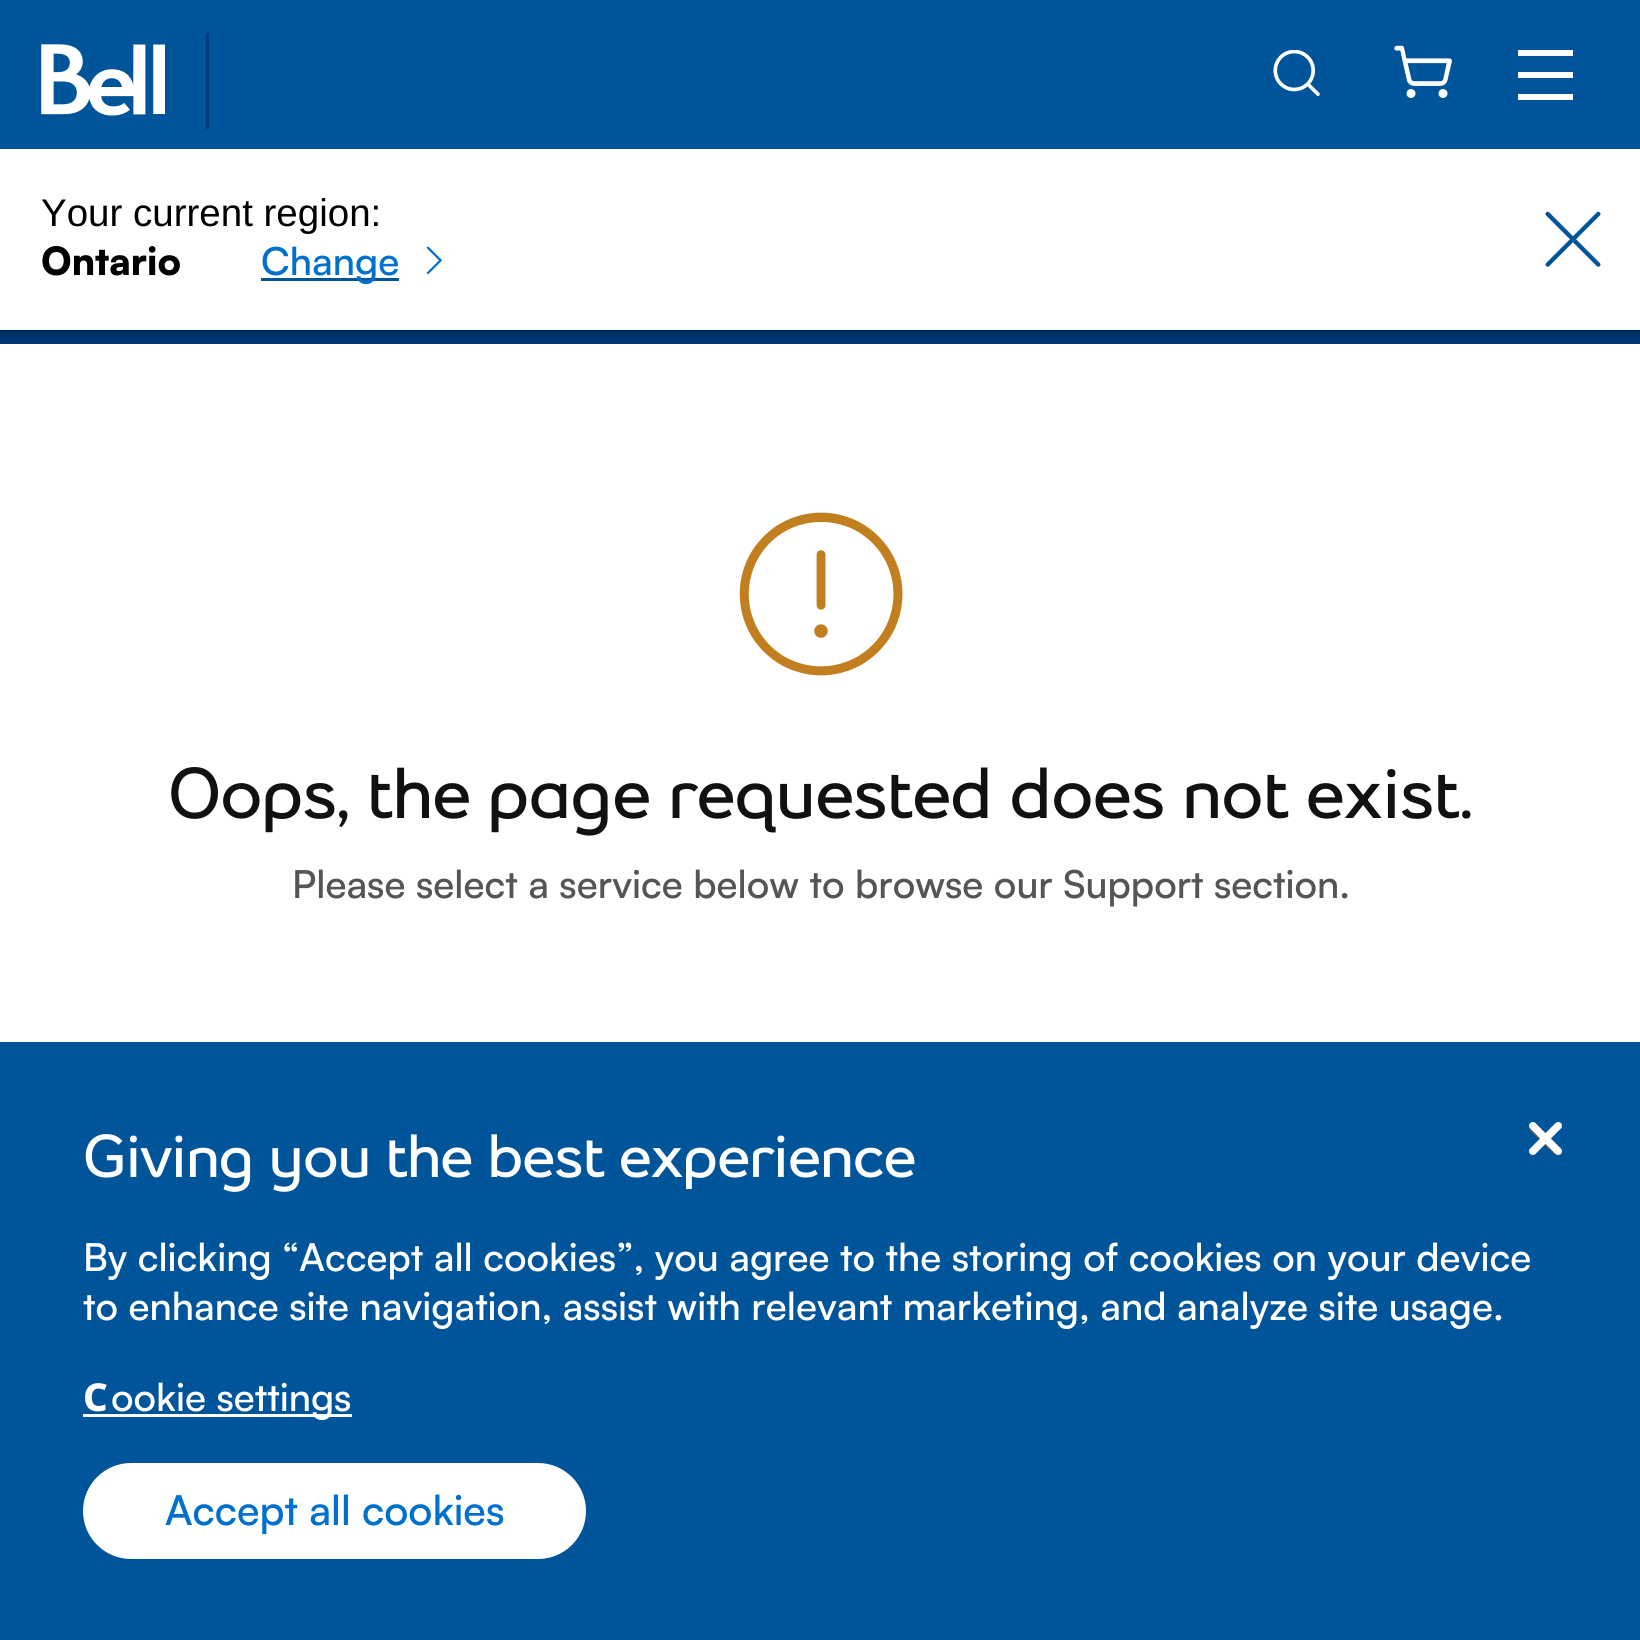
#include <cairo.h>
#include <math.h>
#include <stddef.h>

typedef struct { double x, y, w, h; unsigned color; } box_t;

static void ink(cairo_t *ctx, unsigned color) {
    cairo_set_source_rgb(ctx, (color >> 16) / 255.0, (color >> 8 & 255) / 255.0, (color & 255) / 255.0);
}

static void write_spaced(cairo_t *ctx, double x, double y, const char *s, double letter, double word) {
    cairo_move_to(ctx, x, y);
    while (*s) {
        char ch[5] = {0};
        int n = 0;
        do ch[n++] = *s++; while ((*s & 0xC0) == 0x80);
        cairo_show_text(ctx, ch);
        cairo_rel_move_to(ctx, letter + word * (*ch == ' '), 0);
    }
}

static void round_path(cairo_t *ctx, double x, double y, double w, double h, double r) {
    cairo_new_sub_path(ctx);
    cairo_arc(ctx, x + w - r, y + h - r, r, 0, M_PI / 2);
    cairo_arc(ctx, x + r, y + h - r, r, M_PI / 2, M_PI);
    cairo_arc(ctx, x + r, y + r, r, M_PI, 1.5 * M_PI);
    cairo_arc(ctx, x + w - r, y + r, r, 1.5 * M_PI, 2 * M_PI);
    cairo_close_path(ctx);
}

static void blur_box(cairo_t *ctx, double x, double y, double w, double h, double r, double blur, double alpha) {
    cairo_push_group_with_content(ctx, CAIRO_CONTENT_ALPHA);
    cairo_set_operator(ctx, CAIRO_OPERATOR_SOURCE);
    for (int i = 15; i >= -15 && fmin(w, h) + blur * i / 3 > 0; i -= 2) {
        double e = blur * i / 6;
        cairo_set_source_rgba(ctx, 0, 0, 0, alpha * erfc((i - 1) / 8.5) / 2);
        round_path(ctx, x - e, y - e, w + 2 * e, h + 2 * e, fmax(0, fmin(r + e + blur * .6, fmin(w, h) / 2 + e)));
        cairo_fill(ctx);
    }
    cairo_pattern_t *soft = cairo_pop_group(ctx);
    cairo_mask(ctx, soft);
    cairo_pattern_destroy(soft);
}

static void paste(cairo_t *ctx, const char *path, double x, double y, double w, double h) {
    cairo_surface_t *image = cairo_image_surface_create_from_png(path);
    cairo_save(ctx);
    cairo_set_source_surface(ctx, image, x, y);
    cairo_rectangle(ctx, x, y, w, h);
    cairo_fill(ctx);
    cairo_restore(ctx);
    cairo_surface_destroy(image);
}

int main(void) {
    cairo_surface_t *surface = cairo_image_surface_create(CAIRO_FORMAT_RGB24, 1640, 1640);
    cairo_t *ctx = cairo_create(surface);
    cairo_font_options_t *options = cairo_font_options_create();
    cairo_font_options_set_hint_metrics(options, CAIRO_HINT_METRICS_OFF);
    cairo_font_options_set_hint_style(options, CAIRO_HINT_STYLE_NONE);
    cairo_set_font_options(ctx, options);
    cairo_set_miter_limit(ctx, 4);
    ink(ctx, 0x003778);
    cairo_paint(ctx);
    ink(ctx, 0xFFFFFF);
    cairo_rectangle(ctx, 0, 344, 1640, 698);
    cairo_fill(ctx);
    ink(ctx, 0x000000);
    blur_box(ctx, 0, 149, 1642, 181, 0, 7, 0.5);
    ink(ctx, 0x00549A);
    cairo_rectangle(ctx, 0, 0, 1640, 149);
    cairo_fill(ctx);
    paste(ctx, "media/1.png", 41, 44, 124, 72);
    ink(ctx, 0x003778);
    cairo_rectangle(ctx, 206, 33, 3, 96);
    cairo_fill(ctx);
    paste(ctx, "media/2.png", 1273, 50, 47, 46);
    paste(ctx, "media/3.png", 1394, 45, 58, 53);
    {
        static const box_t items[] = {
            {1518, 50, 55, 6, 0xFFFFFF},
            {1518, 72, 55, 6, 0xFFFFFF},
            {1518, 94, 55, 6, 0xFFFFFF},
            {0, 149, 1640, 181, 0xFFFFFF},
        };
        for (size_t i = 0; i < sizeof items / sizeof *items; i++) {
            ink(ctx, items[i].color);
            cairo_rectangle(ctx, items[i].x, items[i].y, items[i].w, items[i].h);
            cairo_fill(ctx);
        }
    }
    cairo_select_font_face(ctx, "Liberation Sans", CAIRO_FONT_SLANT_NORMAL, CAIRO_FONT_WEIGHT_NORMAL);
    cairo_set_font_size(ctx, 38.5);
    ink(ctx, 0x000000);
    cairo_move_to(ctx, 41, 226);
    cairo_show_text(ctx, "Your current region:");
    cairo_select_font_face(ctx, "Satoshi Black", CAIRO_FONT_SLANT_NORMAL, CAIRO_FONT_WEIGHT_NORMAL);
    cairo_move_to(ctx, 41, 275);
    cairo_show_text(ctx, "Ontario");
    ink(ctx, 0x00549A);
    cairo_rectangle(ctx, 261, 278, 138, 3);
    cairo_fill(ctx);
    cairo_select_font_face(ctx, "Satoshi Medium", CAIRO_FONT_SLANT_NORMAL, CAIRO_FONT_WEIGHT_NORMAL);
    ink(ctx, 0x0070CE);
    cairo_move_to(ctx, 261, 275);
    cairo_show_text(ctx, "Change");
    paste(ctx, "media/4.png", 426, 246, 17, 29);
    paste(ctx, "media/5.png", 1545, 211, 56, 56);
    paste(ctx, "media/6.png", 739, 512, 164, 164);
    cairo_select_font_face(ctx, "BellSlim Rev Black", CAIRO_FONT_SLANT_NORMAL, CAIRO_FONT_WEIGHT_NORMAL);
    cairo_set_font_size(ctx, 71.5);
    ink(ctx, 0x111111);
    write_spaced(ctx, 168, 818, "Oops, the page requested does not exist.", -1.1, 0);
    cairo_select_font_face(ctx, "Satoshi Medium", CAIRO_FONT_SLANT_NORMAL, CAIRO_FONT_WEIGHT_NORMAL);
    cairo_set_font_size(ctx, 38.5);
    ink(ctx, 0x555555);
    cairo_move_to(ctx, 292, 898);
    cairo_show_text(ctx, "Please select a service below to browse our Support section.");
    ink(ctx, 0x00549A);
    cairo_rectangle(ctx, 0, 1042, 1640, 598);
    cairo_fill(ctx);
    cairo_select_font_face(ctx, "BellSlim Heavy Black", CAIRO_FONT_SLANT_NORMAL, CAIRO_FONT_WEIGHT_NORMAL);
    cairo_set_font_size(ctx, 60.5);
    ink(ctx, 0xFFFFFF);
    write_spaced(ctx, 83, 1177, "Giving you the best experience", -1.1, 0);
    cairo_select_font_face(ctx, "Satoshi Medium", CAIRO_FONT_SLANT_NORMAL, CAIRO_FONT_WEIGHT_NORMAL);
    cairo_set_font_size(ctx, 38.5);
    cairo_move_to(ctx, 83, 1271);
    cairo_show_text(ctx, "By clicking “Accept all cookies”, you agree to the storing of cookies on your device");
    cairo_move_to(ctx, 83, 1320);
    cairo_show_text(ctx, "to enhance site navigation, assist with relevant marketing, and analyze site usage.");
    cairo_select_font_face(ctx, "Noto Sans ExtraBold", CAIRO_FONT_SLANT_NORMAL, CAIRO_FONT_WEIGHT_NORMAL);
    cairo_move_to(ctx, 83, 1411);
    cairo_show_text(ctx, "C");
    cairo_rectangle(ctx, 83, 1414, 269, 3);
    cairo_fill(ctx);
    cairo_select_font_face(ctx, "Satoshi Medium", CAIRO_FONT_SLANT_NORMAL, CAIRO_FONT_WEIGHT_NORMAL);
    cairo_move_to(ctx, 111, 1411);
    cairo_show_text(ctx, "ookie settings");
    round_path(ctx, 83, 1463, 503, 96, 48);
    cairo_fill(ctx);
    cairo_set_font_size(ctx, 41.25);
    ink(ctx, 0x0070CE);
    cairo_move_to(ctx, 165, 1525);
    cairo_show_text(ctx, "Accept all cookies");
    paste(ctx, "media/7.png", 1529, 1125, 30, 30);
    paste(ctx, "media/8.png", 1529, 1122, 33, 33);
    cairo_surface_write_to_png(surface, "image.png");
    cairo_font_options_destroy(options);
    cairo_destroy(ctx);
    cairo_surface_destroy(surface);
    return 0;
}
